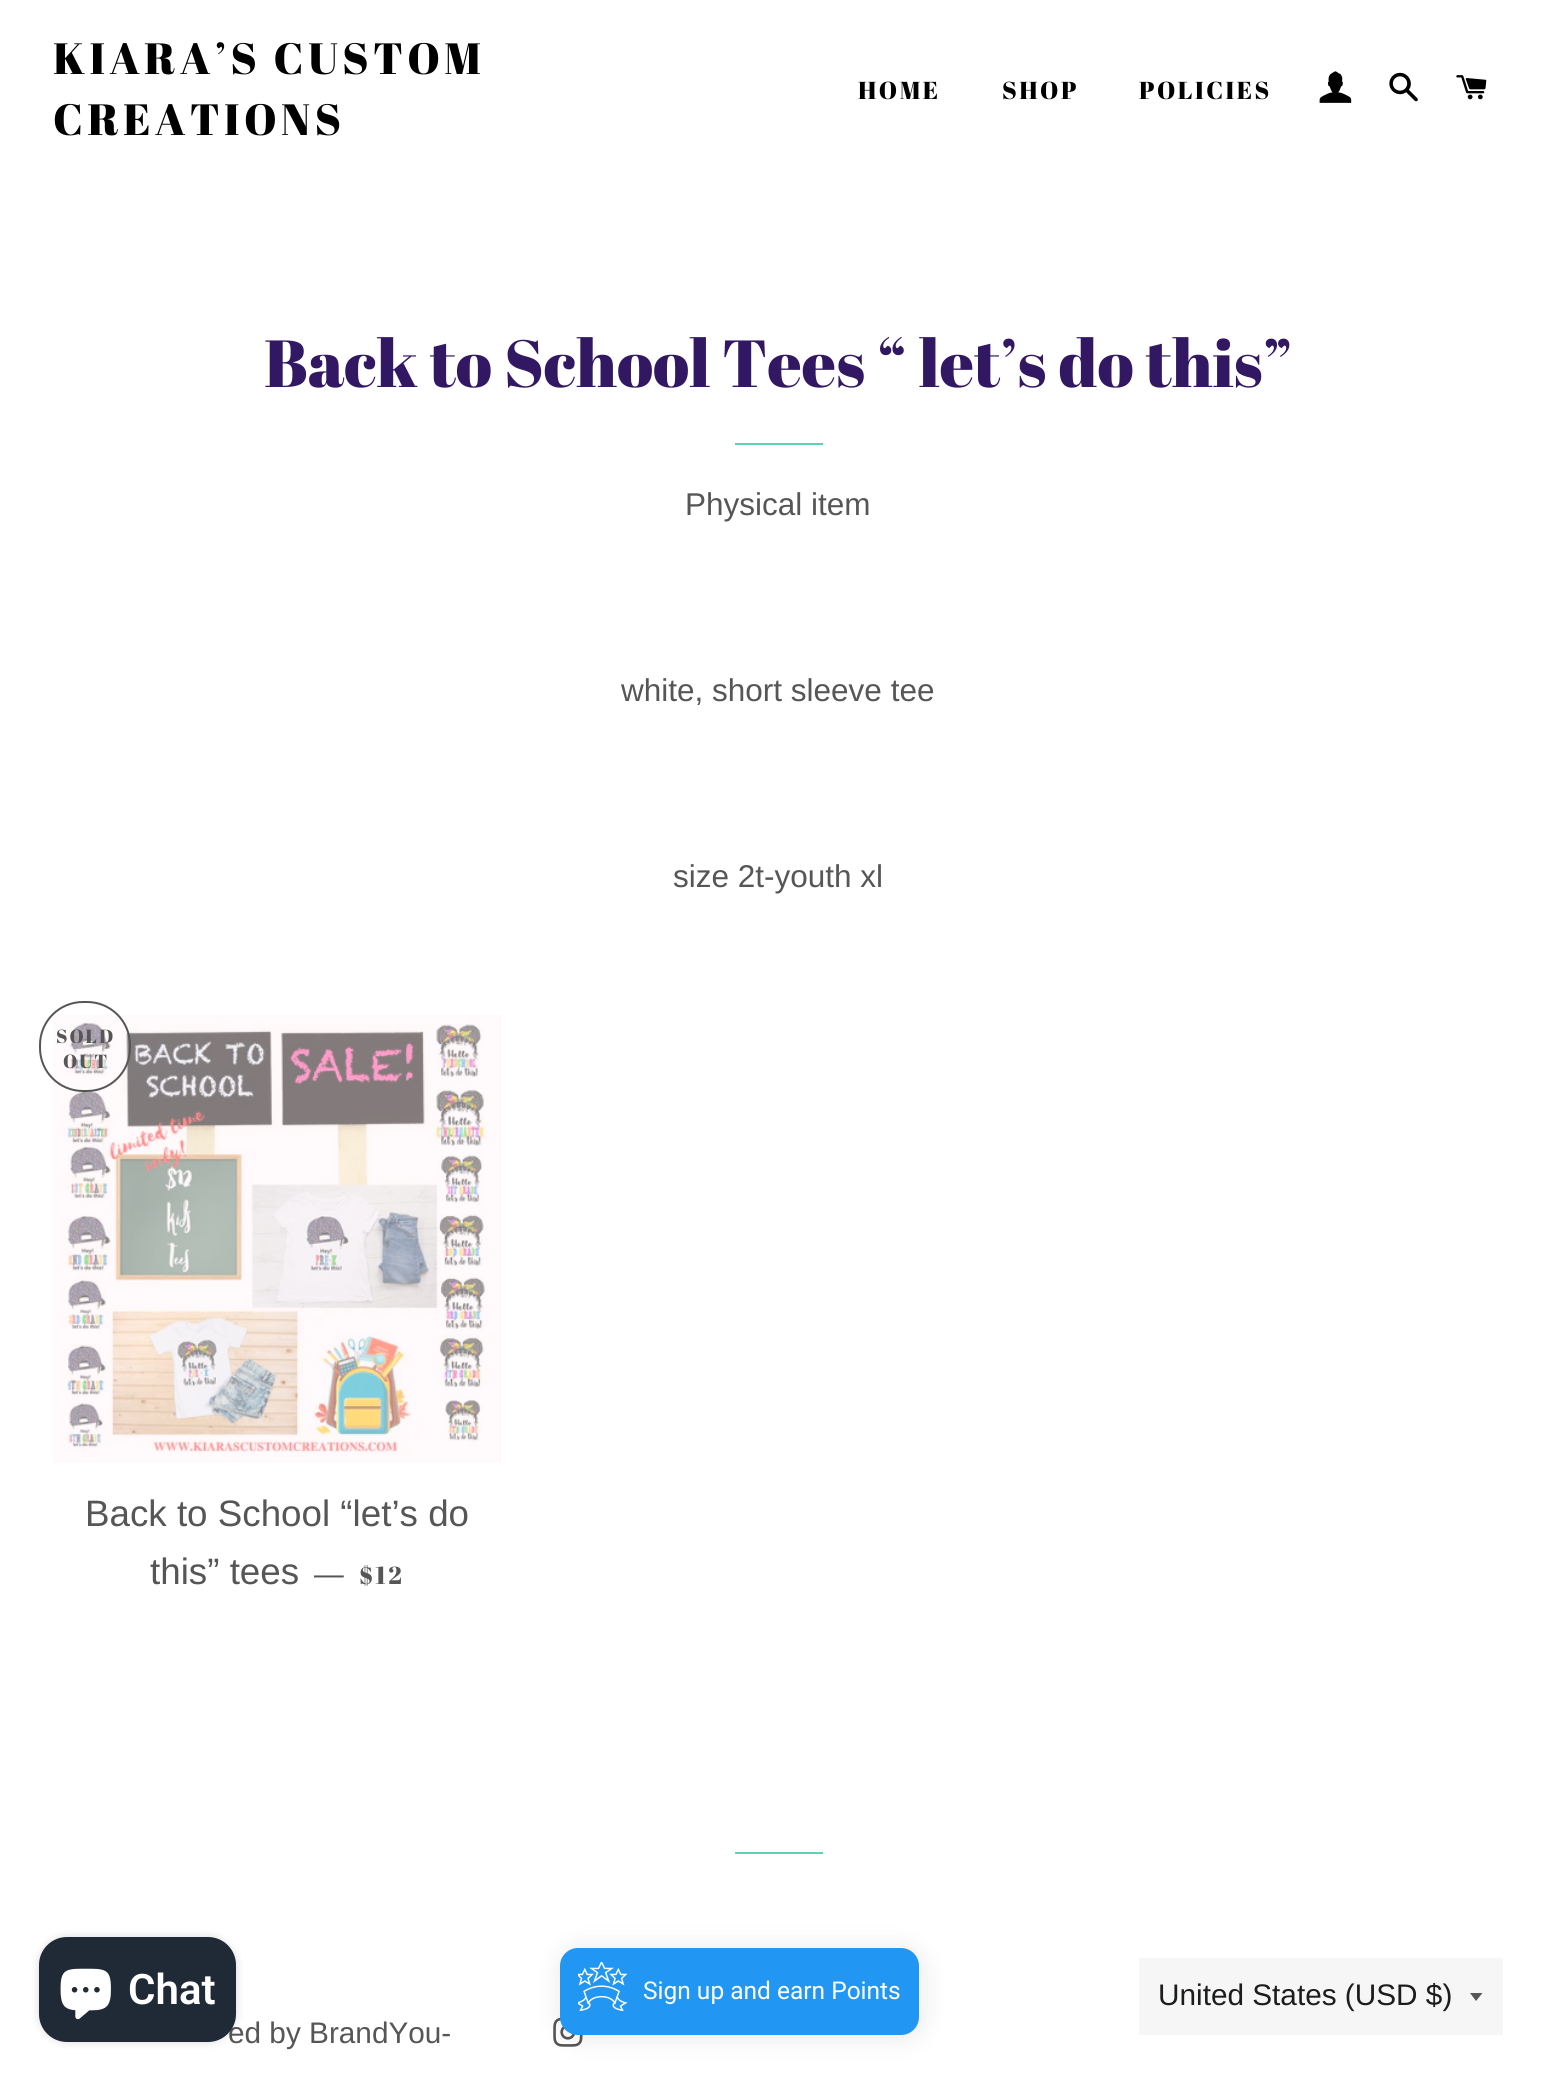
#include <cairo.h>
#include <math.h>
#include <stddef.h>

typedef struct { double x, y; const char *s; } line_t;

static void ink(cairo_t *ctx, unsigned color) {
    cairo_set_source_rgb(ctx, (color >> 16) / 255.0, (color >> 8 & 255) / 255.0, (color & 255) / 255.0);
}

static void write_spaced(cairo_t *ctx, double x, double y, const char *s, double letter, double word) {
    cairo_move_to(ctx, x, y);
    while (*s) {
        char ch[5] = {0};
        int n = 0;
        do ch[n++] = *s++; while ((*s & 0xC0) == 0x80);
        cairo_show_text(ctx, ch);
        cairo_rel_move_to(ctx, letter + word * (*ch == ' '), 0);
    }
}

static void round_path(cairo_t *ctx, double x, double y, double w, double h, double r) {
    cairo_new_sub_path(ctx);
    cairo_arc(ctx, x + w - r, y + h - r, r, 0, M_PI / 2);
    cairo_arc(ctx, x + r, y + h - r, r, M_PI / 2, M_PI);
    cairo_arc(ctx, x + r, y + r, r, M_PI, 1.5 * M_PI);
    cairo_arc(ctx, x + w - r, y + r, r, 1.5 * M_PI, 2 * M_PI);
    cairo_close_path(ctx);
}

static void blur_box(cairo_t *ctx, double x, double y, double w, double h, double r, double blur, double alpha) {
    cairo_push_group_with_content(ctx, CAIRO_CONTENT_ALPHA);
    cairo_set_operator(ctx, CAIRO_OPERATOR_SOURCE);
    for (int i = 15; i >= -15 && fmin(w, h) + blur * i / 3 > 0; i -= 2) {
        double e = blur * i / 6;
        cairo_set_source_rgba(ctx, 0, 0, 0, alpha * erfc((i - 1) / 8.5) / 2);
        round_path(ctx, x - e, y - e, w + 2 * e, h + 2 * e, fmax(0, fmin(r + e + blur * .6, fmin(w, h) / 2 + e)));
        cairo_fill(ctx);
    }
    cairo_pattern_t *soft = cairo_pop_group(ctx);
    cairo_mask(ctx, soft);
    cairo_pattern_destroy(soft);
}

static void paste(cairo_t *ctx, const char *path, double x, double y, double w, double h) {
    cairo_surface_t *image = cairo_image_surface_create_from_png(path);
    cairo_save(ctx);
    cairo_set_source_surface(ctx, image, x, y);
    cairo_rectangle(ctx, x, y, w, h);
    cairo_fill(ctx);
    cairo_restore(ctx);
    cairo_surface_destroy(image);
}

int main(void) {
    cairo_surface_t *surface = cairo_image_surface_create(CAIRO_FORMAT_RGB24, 1555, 2079);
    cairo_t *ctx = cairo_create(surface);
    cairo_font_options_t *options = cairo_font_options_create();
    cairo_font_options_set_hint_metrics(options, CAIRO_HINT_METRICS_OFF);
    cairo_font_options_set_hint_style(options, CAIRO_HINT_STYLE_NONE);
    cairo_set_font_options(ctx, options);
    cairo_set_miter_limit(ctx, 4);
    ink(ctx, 0xFFFFFF);
    cairo_paint(ctx);
    cairo_select_font_face(ctx, "Abril Fatface", CAIRO_FONT_SLANT_NORMAL, CAIRO_FONT_WEIGHT_NORMAL);
    cairo_set_font_size(ctx, 43.75);
    ink(ctx, 0x000000);
    write_spaced(ctx, 53, 74, "KIARA’S CUSTOM", 4.4, 0);
    write_spaced(ctx, 53, 135, "CREATIONS", 4.4, 0);
    cairo_set_font_size(ctx, 24.5);
    {
        static const line_t items[] = {
            {858, 99, "HOME"},
            {1002, 99, "SHOP"},
            {1139, 99, "POLICIES"},
        };
        for (size_t i = 0; i < sizeof items / sizeof *items; i++) {
            write_spaced(ctx, items[i].x, items[i].y, items[i].s, 2.5, 0);
        }
    }
    paste(ctx, "media/1.png", 1319, 71, 33, 32);
    paste(ctx, "media/2.png", 1389, 72, 29, 30);
    paste(ctx, "media/3.png", 1456, 75, 31, 25);
    cairo_set_font_size(ctx, 66.5);
    ink(ctx, 0x321863);
    cairo_move_to(ctx, 264, 387);
    cairo_show_text(ctx, "Back to School Tees “ let’s do this”");
    ink(ctx, 0x5DD2B4);
    cairo_rectangle(ctx, 735, 443, 88, 2);
    cairo_fill(ctx);
    cairo_select_font_face(ctx, "Liberation Sans", CAIRO_FONT_SLANT_NORMAL, CAIRO_FONT_WEIGHT_NORMAL);
    cairo_set_font_size(ctx, 31.5);
    ink(ctx, 0x565656);
    {
        static const line_t items[] = {
            {685, 515, "Physical item"},
            {621, 701, "white, short sleeve tee"},
            {673, 887, "size 2t-youth xl"},
        };
        for (size_t i = 0; i < sizeof items / sizeof *items; i++) {
            cairo_move_to(ctx, items[i].x, items[i].y);
            cairo_show_text(ctx, items[i].s);
        }
    }
    ink(ctx, 0xFFF4F6);
    cairo_rectangle(ctx, 53, 1015, 448, 448);
    cairo_fill(ctx);
    paste(ctx, "media/4.png", 53, 1015, 447, 448);
    round_path(ctx, 40, 1002, 90, 89, 43);
    ink(ctx, 0x565656);
    cairo_stroke(ctx);
    cairo_select_font_face(ctx, "Abril Fatface", CAIRO_FONT_SLANT_NORMAL, CAIRO_FONT_WEIGHT_NORMAL);
    cairo_set_font_size(ctx, 19);
    write_spaced(ctx, 56, 1043, "SOLD", 2, 0);
    write_spaced(ctx, 63, 1068, "OUT", 2, 0);
    cairo_select_font_face(ctx, "Liberation Sans", CAIRO_FONT_SLANT_NORMAL, CAIRO_FONT_WEIGHT_NORMAL);
    cairo_set_font_size(ctx, 36.75);
    cairo_move_to(ctx, 85, 1526);
    cairo_show_text(ctx, "Back to School “let’s do");
    cairo_move_to(ctx, 150, 1584);
    cairo_show_text(ctx, "this” tees");
    cairo_set_font_size(ctx, 29.75);
    cairo_move_to(ctx, 314, 1584);
    cairo_show_text(ctx, "—");
    cairo_select_font_face(ctx, "Abril Fatface", CAIRO_FONT_SLANT_NORMAL, CAIRO_FONT_WEIGHT_NORMAL);
    cairo_set_font_size(ctx, 24.5);
    write_spaced(ctx, 359, 1584, "$12", 2.5, 0);
    ink(ctx, 0x5DD2B4);
    cairo_rectangle(ctx, 735, 1852, 88, 2);
    cairo_fill(ctx);
    ink(ctx, 0xF6F6F6);
    cairo_rectangle(ctx, 1139, 1958, 364, 77);
    cairo_fill(ctx);
    ink(ctx, 0x565656);
    cairo_new_path(ctx);
    cairo_move_to(ctx, 1470, 1993);
    cairo_line_to(ctx, 1476, 2001);
    cairo_line_to(ctx, 1482.5, 1993);
    cairo_close_path(ctx);
    cairo_fill(ctx);
    cairo_select_font_face(ctx, "Liberation Sans", CAIRO_FONT_SLANT_NORMAL, CAIRO_FONT_WEIGHT_NORMAL);
    cairo_set_font_size(ctx, 29.75);
    ink(ctx, 0x1C1D1D);
    cairo_move_to(ctx, 1158, 2005);
    cairo_show_text(ctx, "United States (USD $)");
    ink(ctx, 0x565656);
    cairo_move_to(ctx, 228, 2043);
    cairo_show_text(ctx, "ed by BrandYou-");
    paste(ctx, "media/5.png", 553, 2017, 30, 30);
    ink(ctx, 0x000000);
    blur_box(ctx, 39, 1937, 197, 105, 28, 4.5, 0.15);
    ink(ctx, 0x202A36);
    round_path(ctx, 39, 1937, 197, 105, 28);
    cairo_fill(ctx);
    paste(ctx, "media/6.png", 60, 1968, 51, 52);
    cairo_select_font_face(ctx, "Roboto SemiBold", CAIRO_FONT_SLANT_NORMAL, CAIRO_FONT_WEIGHT_NORMAL);
    cairo_set_font_size(ctx, 42);
    ink(ctx, 0xFFFFFF);
    cairo_move_to(ctx, 128, 2004);
    cairo_show_text(ctx, "Chat");
    ink(ctx, 0x000000);
    blur_box(ctx, 562, 1950, 359, 87, 18, 13, 0.1);
    ink(ctx, 0x2196F3);
    round_path(ctx, 560, 1948, 359, 87, 18);
    cairo_fill(ctx);
    paste(ctx, "media/7.png", 578, 1962, 50, 50);
    cairo_select_font_face(ctx, "Roboto", CAIRO_FONT_SLANT_NORMAL, CAIRO_FONT_WEIGHT_NORMAL);
    cairo_set_font_size(ctx, 24.5);
    ink(ctx, 0xFFFFFF);
    cairo_move_to(ctx, 643, 1999);
    cairo_show_text(ctx, "Sign up and earn Points");
    cairo_surface_write_to_png(surface, "image.png");
    cairo_font_options_destroy(options);
    cairo_destroy(ctx);
    cairo_surface_destroy(surface);
    return 0;
}
